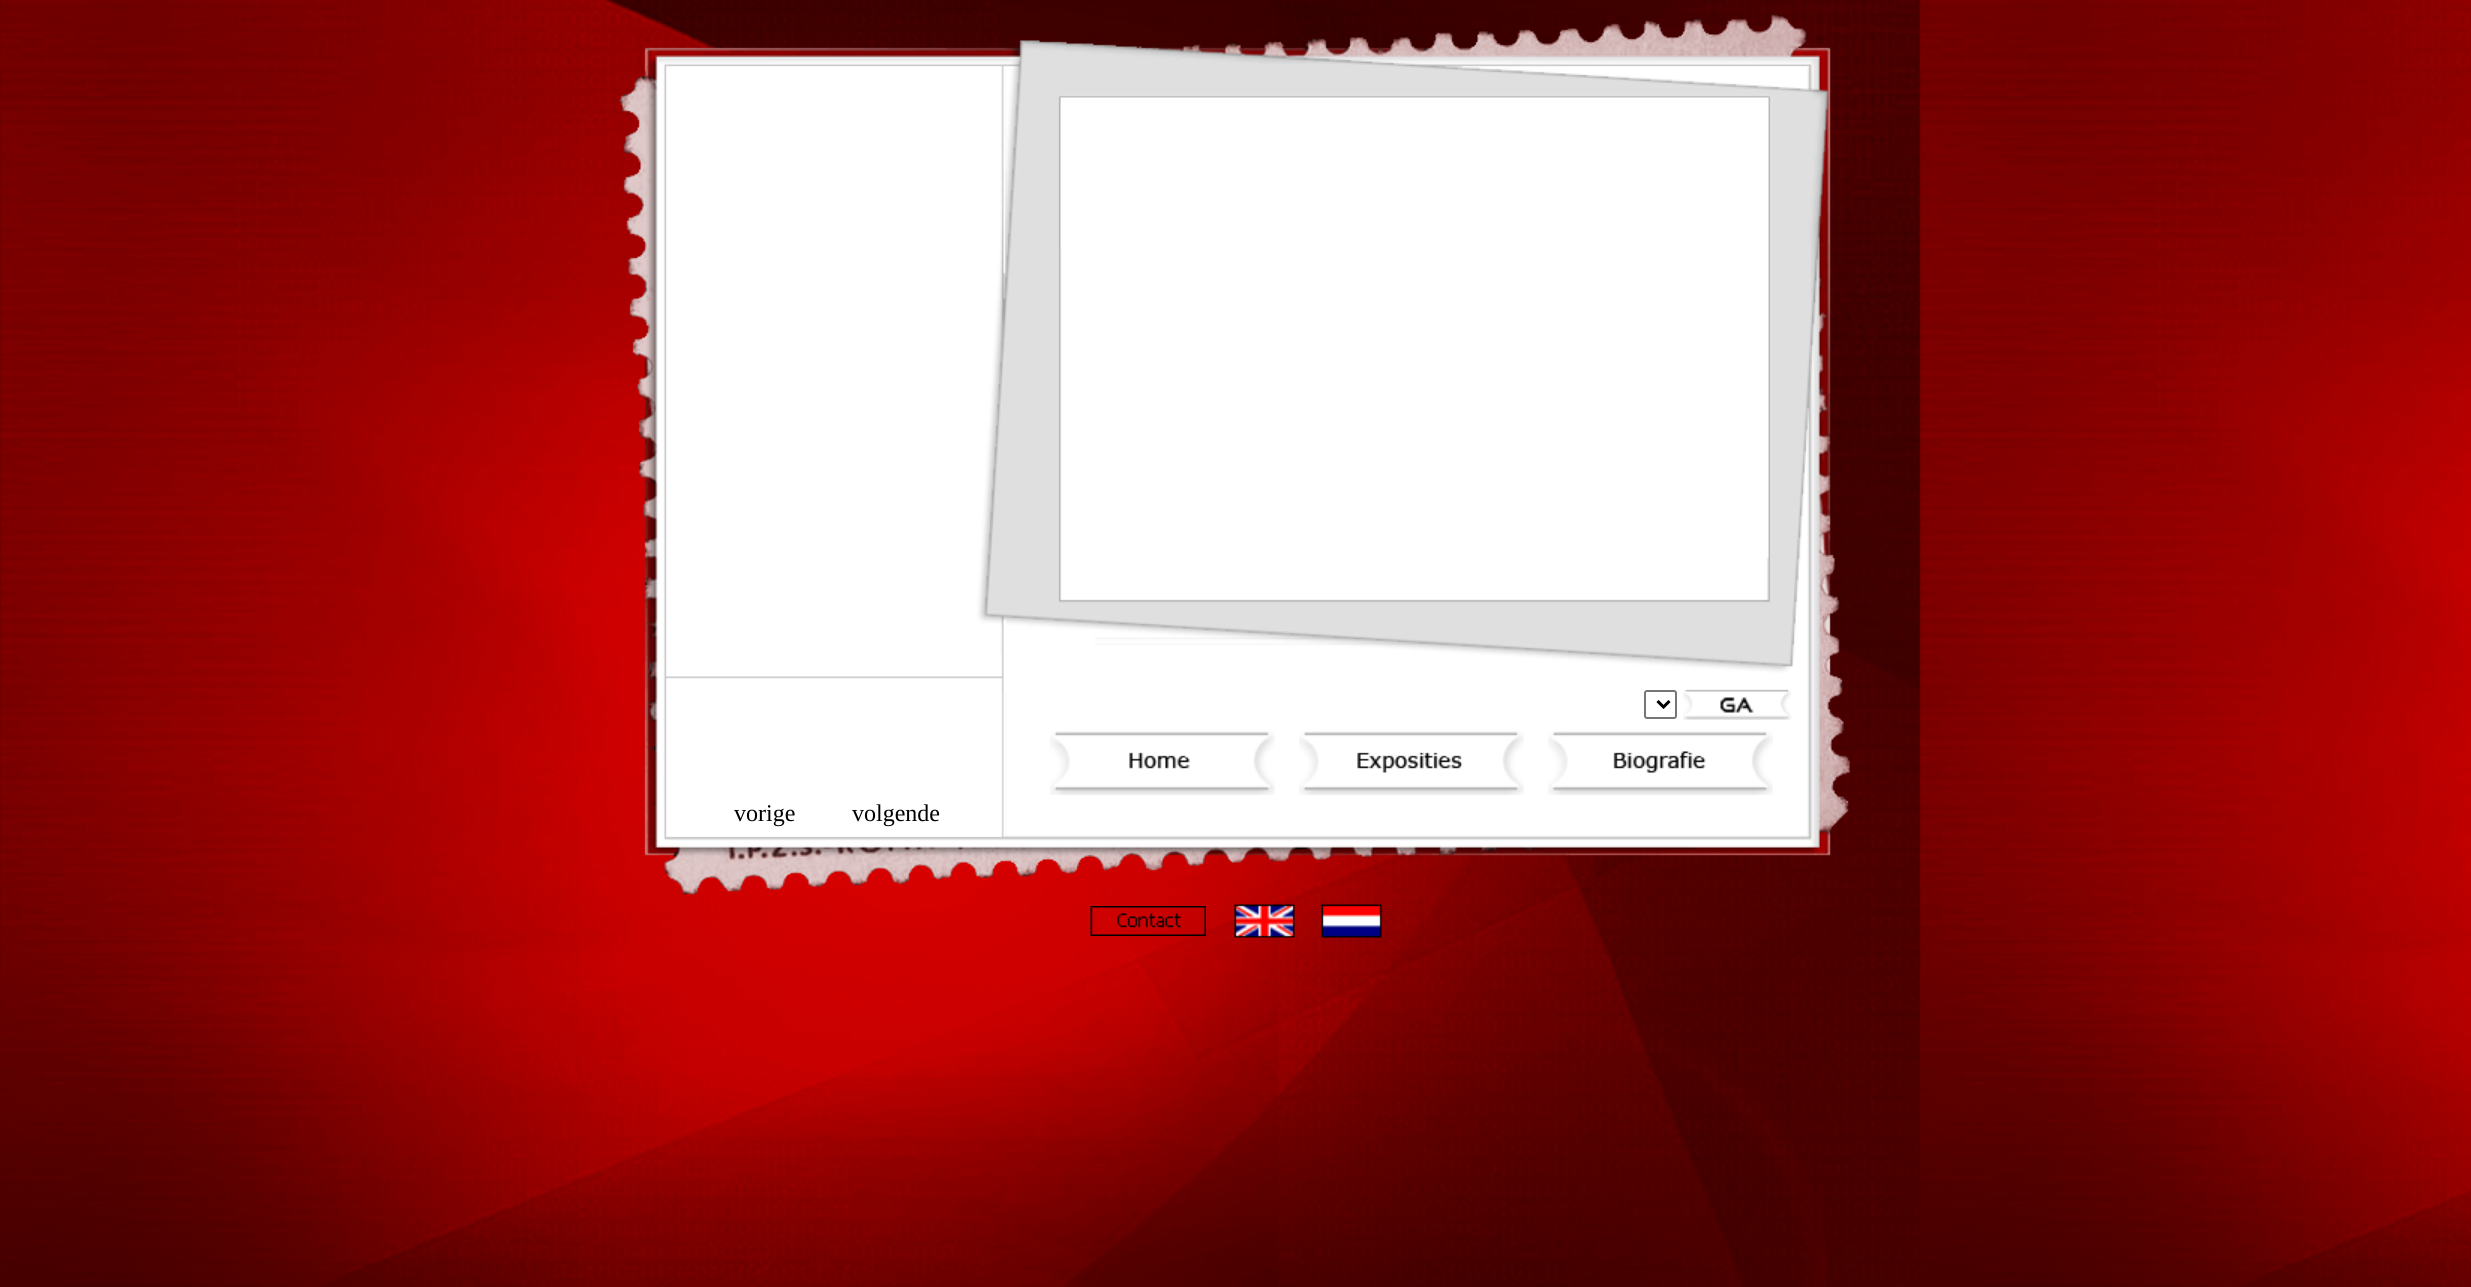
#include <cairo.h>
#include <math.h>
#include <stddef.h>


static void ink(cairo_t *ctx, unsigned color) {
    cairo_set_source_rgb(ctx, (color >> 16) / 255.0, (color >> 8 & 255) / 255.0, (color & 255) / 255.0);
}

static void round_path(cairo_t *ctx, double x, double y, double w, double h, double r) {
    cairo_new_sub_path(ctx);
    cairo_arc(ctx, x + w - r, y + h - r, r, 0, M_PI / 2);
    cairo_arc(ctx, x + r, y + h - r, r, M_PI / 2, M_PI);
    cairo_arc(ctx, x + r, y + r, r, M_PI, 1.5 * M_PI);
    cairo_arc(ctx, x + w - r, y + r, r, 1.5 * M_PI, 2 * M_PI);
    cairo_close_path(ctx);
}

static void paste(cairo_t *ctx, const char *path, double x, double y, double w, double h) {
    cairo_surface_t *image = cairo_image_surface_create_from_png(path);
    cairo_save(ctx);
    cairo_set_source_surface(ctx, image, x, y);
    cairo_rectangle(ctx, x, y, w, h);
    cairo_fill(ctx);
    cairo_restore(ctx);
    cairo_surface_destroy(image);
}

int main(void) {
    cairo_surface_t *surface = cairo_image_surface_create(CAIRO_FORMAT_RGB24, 2471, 1287);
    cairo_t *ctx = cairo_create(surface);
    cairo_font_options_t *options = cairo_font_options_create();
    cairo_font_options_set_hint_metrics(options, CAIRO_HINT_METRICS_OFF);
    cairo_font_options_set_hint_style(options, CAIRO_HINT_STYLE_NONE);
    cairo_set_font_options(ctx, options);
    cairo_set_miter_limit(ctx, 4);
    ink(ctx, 0xFFFFFF);
    cairo_paint(ctx);
    paste(ctx, "media/1.png", 0, 0, 2471, 1287);
    paste(ctx, "media/2.png", 619, 14, 1231, 886);
    round_path(ctx, 1645, 691, 31, 27, 2);
    ink(ctx, 0x767676);
    cairo_stroke(ctx);
    cairo_new_path(ctx);
    cairo_move_to(ctx, 1657.5, 701);
    cairo_line_to(ctx, 1663.5, 707);
    cairo_line_to(ctx, 1669.5, 701);
    ink(ctx, 0x000000);
    cairo_set_line_width(ctx, 3);
    cairo_stroke(ctx);
    paste(ctx, "media/3.png", 1683, 689, 108, 31);
    paste(ctx, "media/4.png", 1050, 731, 225, 64);
    paste(ctx, "media/5.png", 1299, 731, 225, 64);
    paste(ctx, "media/6.png", 1548, 731, 225, 64);
    cairo_select_font_face(ctx, "Liberation Serif", CAIRO_FONT_SLANT_NORMAL, CAIRO_FONT_WEIGHT_NORMAL);
    cairo_set_font_size(ctx, 24);
    cairo_move_to(ctx, 734, 821);
    cairo_show_text(ctx, "vorige");
    cairo_move_to(ctx, 852, 821);
    cairo_show_text(ctx, "volgende");
    paste(ctx, "media/7.png", 1090, 906, 116, 30);
    paste(ctx, "media/8.png", 1234, 904, 61, 34);
    paste(ctx, "media/9.png", 1321, 904, 61, 34);
    cairo_surface_write_to_png(surface, "image.png");
    cairo_font_options_destroy(options);
    cairo_destroy(ctx);
    cairo_surface_destroy(surface);
    return 0;
}
